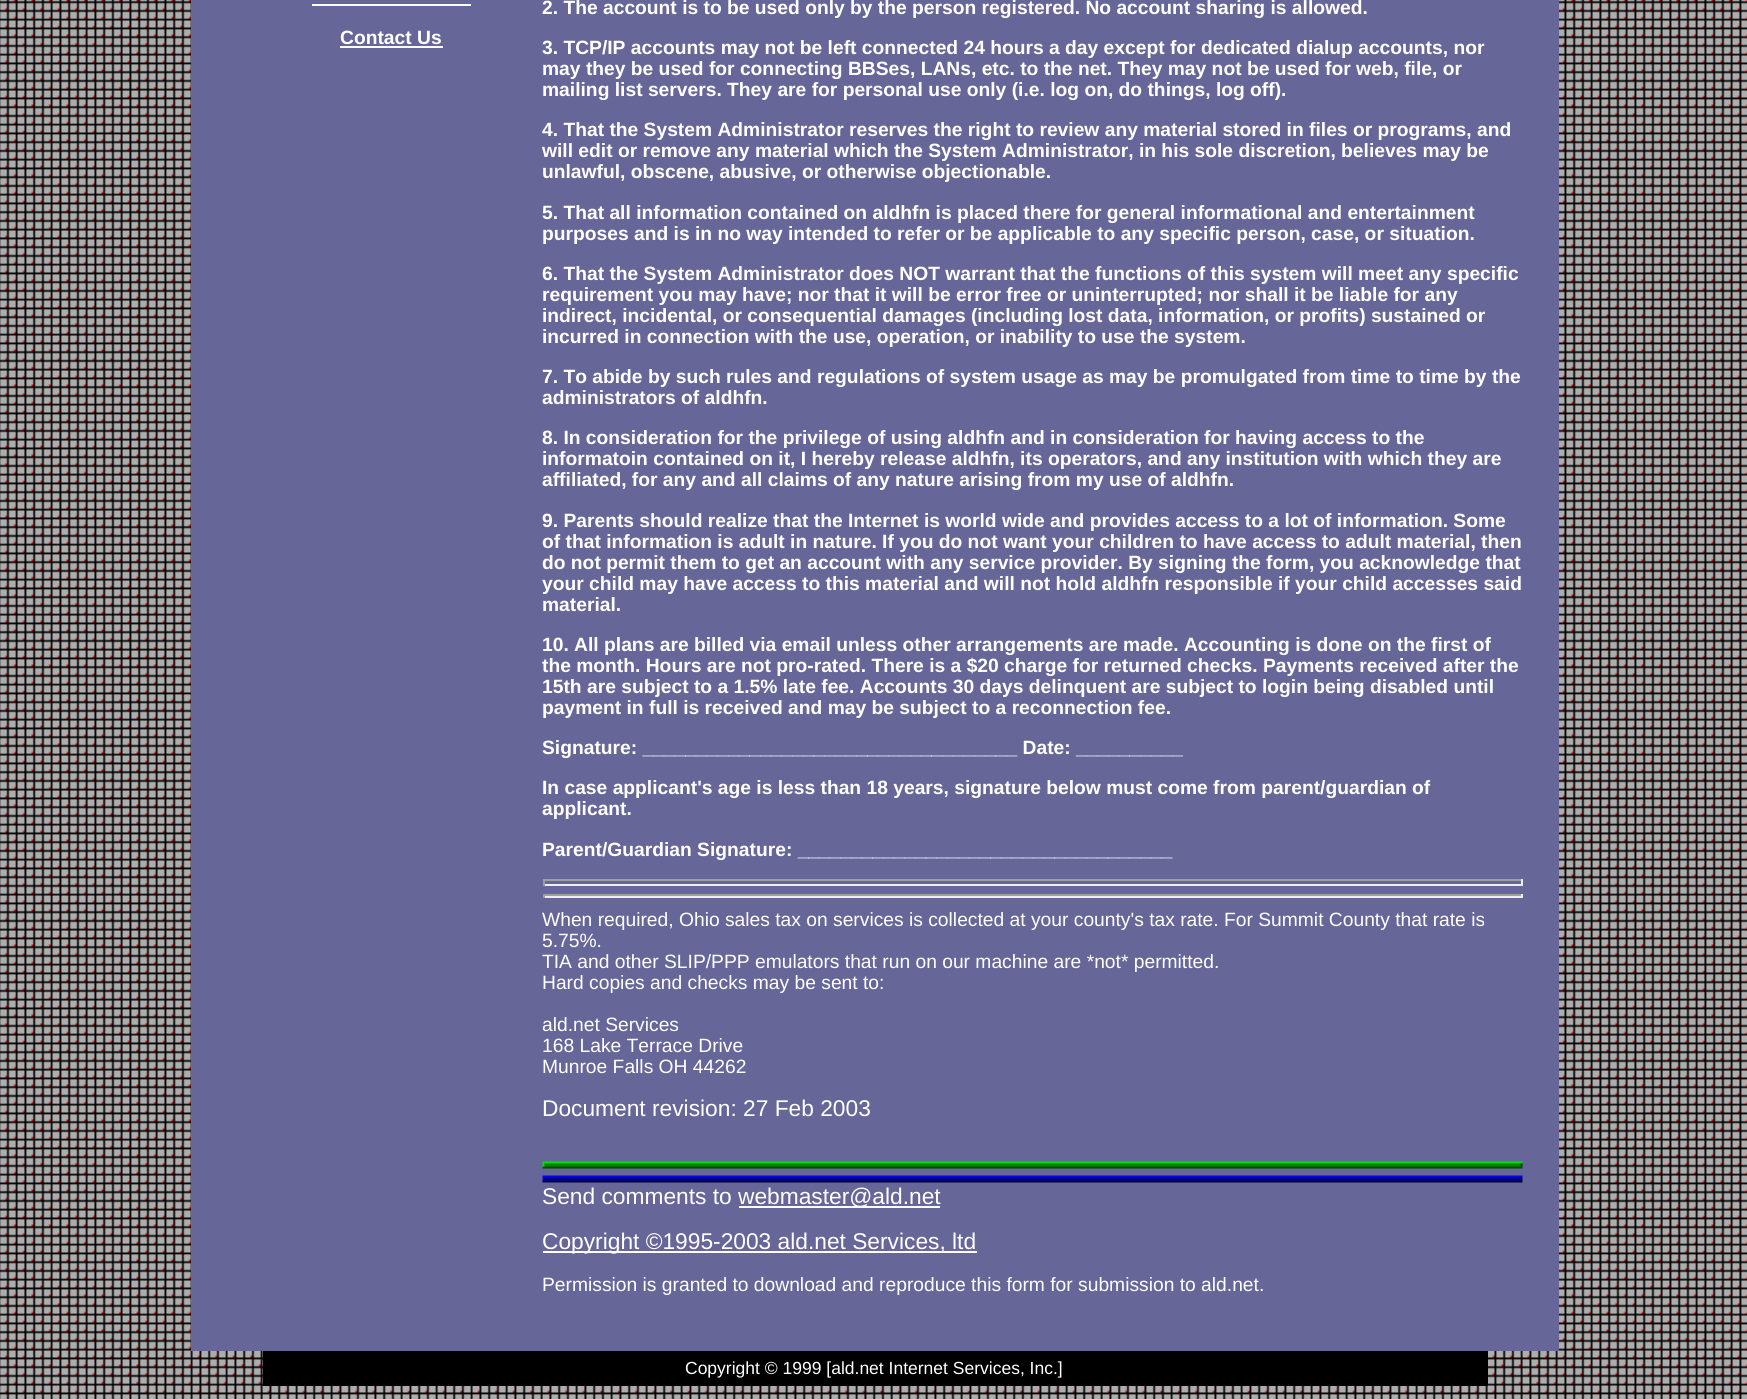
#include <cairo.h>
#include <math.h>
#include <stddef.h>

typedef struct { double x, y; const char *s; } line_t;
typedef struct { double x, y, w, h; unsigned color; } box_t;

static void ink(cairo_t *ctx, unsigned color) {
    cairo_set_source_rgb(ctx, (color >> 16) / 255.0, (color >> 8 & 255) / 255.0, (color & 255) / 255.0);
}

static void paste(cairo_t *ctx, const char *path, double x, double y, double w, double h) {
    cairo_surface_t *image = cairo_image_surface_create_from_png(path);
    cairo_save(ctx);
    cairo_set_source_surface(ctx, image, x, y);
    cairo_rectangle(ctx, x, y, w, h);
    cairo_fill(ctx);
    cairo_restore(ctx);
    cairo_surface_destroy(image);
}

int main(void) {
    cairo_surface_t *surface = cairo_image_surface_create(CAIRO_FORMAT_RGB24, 1747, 1399);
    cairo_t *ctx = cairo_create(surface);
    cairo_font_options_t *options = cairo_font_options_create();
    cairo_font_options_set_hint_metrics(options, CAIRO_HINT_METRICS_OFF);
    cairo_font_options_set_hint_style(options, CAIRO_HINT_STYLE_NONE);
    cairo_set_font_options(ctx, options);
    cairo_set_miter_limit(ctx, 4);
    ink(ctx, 0xFFFFFF);
    cairo_paint(ctx);
    paste(ctx, "media/1.png", 0, 0, 1747, 1399);
    ink(ctx, 0x666699);
    cairo_rectangle(ctx, 191, 0, 1368, 1351);
    cairo_fill(ctx);
    ink(ctx, 0xFFFFFF);
    cairo_rectangle(ctx, 312, 4, 159, 2);
    cairo_fill(ctx);
    cairo_select_font_face(ctx, "Liberation Sans", CAIRO_FONT_SLANT_NORMAL, CAIRO_FONT_WEIGHT_BOLD);
    cairo_set_font_size(ctx, 19.25);
    cairo_move_to(ctx, 340, 44);
    cairo_show_text(ctx, "Contact Us");
    cairo_rectangle(ctx, 340, 46, 103, 2);
    cairo_fill(ctx);
    {
        static const line_t items[] = {
            {542, 14, "2. The account is to be used only by the person registered. No account sharing is allowed."},
            {542, 54, "3. TCP/IP accounts may not be left connected 24 hours a day except for dedicated dialup accounts, nor"},
            {542, 75, "may they be used for connecting BBSes, LANs, etc. to the net. They may not be used for web, file, or"},
            {542, 96, "mailing list servers. They are for personal use only (i.e. log on, do things, log off)."},
            {542, 136, "4. That the System Administrator reserves the right to review any material stored in files or programs, and"},
            {542, 157, "will edit or remove any material which the System Administrator, in his sole discretion, believes may be"},
            {542, 178, "unlawful, obscene, abusive, or otherwise objectionable."},
            {542, 219, "5. That all information contained on aldhfn is placed there for general informational and entertainment"},
            {542, 240, "purposes and is in no way intended to refer or be applicable to any specific person, case, or situation."},
            {542, 280, "6. That the System Administrator does NOT warrant that the functions of this system will meet any specific"},
            {542, 301, "requirement you may have; nor that it will be error free or uninterrupted; nor shall it be liable for any"},
            {542, 322, "indirect, incidental, or consequential damages (including lost data, information, or profits) sustained or"},
            {542, 343, "incurred in connection with the use, operation, or inability to use the system."},
            {542, 383, "7. To abide by such rules and regulations of system usage as may be promulgated from time to time by the"},
            {542, 404, "administrators of aldhfn."},
            {542, 444, "8. In consideration for the privilege of using aldhfn and in consideration for having access to the"},
            {542, 465, "informatoin contained on it, I hereby release aldhfn, its operators, and any institution with which they are"},
            {542, 486, "affiliated, for any and all claims of any nature arising from my use of aldhfn."},
            {542, 527, "9. Parents should realize that the Internet is world wide and provides access to a lot of information. Some"},
            {542, 548, "of that information is adult in nature. If you do not want your children to have access to adult material, then"},
            {542, 569, "do not permit them to get an account with any service provider. By signing the form, you acknowledge that"},
            {542, 590, "your child may have access to this material and will not hold aldhfn responsible if your child accesses said"},
            {542, 611, "material."},
            {542, 651, "10. All plans are billed via email unless other arrangements are made. Accounting is done on the first of"},
            {542, 672, "the month. Hours are not pro-rated. There is a $20 charge for returned checks. Payments received after the"},
            {542, 693, "15th are subject to a 1.5% late fee. Accounts 30 days delinquent are subject to login being disabled until"},
            {542, 714, "payment in full is received and may be subject to a reconnection fee."},
            {542, 754, "Signature: ___________________________________ Date: __________"},
            {542, 794, "In case applicant's age is less than 18 years, signature below must come from parent/guardian of"},
            {542, 815, "applicant."},
            {542, 856, "Parent/Guardian Signature: ___________________________________"},
        };
        for (size_t i = 0; i < sizeof items / sizeof *items; i++) {
            cairo_move_to(ctx, items[i].x, items[i].y);
            cairo_show_text(ctx, items[i].s);
        }
    }
    {
        static const box_t items[] = {
            {543, 879, 980, 2, 0x9F9F9F},
            {1521, 879, 2, 7, 0xEEEEEE},
            {543, 884, 980, 2, 0xEEEEEE},
            {543, 879, 2, 7, 0x9F9F9F},
            {543, 894, 980, 2, 0x9F9F9F},
            {1521, 894, 2, 4, 0xEEEEEE},
            {543, 896, 980, 2, 0xEEEEEE},
            {543, 894, 2, 4, 0x9F9F9F},
        };
        for (size_t i = 0; i < sizeof items / sizeof *items; i++) {
            ink(ctx, items[i].color);
            cairo_rectangle(ctx, items[i].x, items[i].y, items[i].w, items[i].h);
            cairo_fill(ctx);
        }
    }
    cairo_select_font_face(ctx, "Liberation Sans", CAIRO_FONT_SLANT_NORMAL, CAIRO_FONT_WEIGHT_NORMAL);
    ink(ctx, 0xFFFFFF);
    {
        static const line_t items[] = {
            {542, 926, "When required, Ohio sales tax on services is collected at your county's tax rate. For Summit County that rate is"},
            {542, 947, "5.75%."},
            {542, 968, "TIA and other SLIP/PPP emulators that run on our machine are *not* permitted."},
            {542, 989, "Hard copies and checks may be sent to:"},
            {542, 1031, "ald.net Services"},
            {542, 1052, "168 Lake Terrace Drive"},
            {542, 1073, "Munroe Falls OH 44262"},
        };
        for (size_t i = 0; i < sizeof items / sizeof *items; i++) {
            cairo_move_to(ctx, items[i].x, items[i].y);
            cairo_show_text(ctx, items[i].s);
        }
    }
    cairo_set_font_size(ctx, 22.75);
    cairo_move_to(ctx, 542, 1116);
    cairo_show_text(ctx, "Document revision: 27 Feb 2003");
    paste(ctx, "media/2.png", 542, 1161, 981, 22);
    cairo_move_to(ctx, 542, 1204);
    cairo_show_text(ctx, "Send comments to");
    cairo_rectangle(ctx, 739, 1206, 201, 2);
    cairo_fill(ctx);
    cairo_move_to(ctx, 738, 1204);
    cairo_show_text(ctx, "webmaster@ald.net");
    cairo_rectangle(ctx, 543, 1251, 434, 2);
    cairo_fill(ctx);
    cairo_move_to(ctx, 542, 1249);
    cairo_show_text(ctx, "Copyright ©1995-2003 ald.net Services, ltd");
    cairo_set_font_size(ctx, 19.25);
    cairo_move_to(ctx, 542, 1291);
    cairo_show_text(ctx, "Permission is granted to download and reproduce this form for submission to ald.net.");
    ink(ctx, 0x000000);
    cairo_rectangle(ctx, 263, 1351, 1225, 35);
    cairo_fill(ctx);
    cairo_set_font_size(ctx, 17.5);
    ink(ctx, 0xFFFFFF);
    cairo_move_to(ctx, 685, 1374);
    cairo_show_text(ctx, "Copyright © 1999 [ald.net Internet Services, Inc.]");
    cairo_surface_write_to_png(surface, "image.png");
    cairo_font_options_destroy(options);
    cairo_destroy(ctx);
    cairo_surface_destroy(surface);
    return 0;
}
